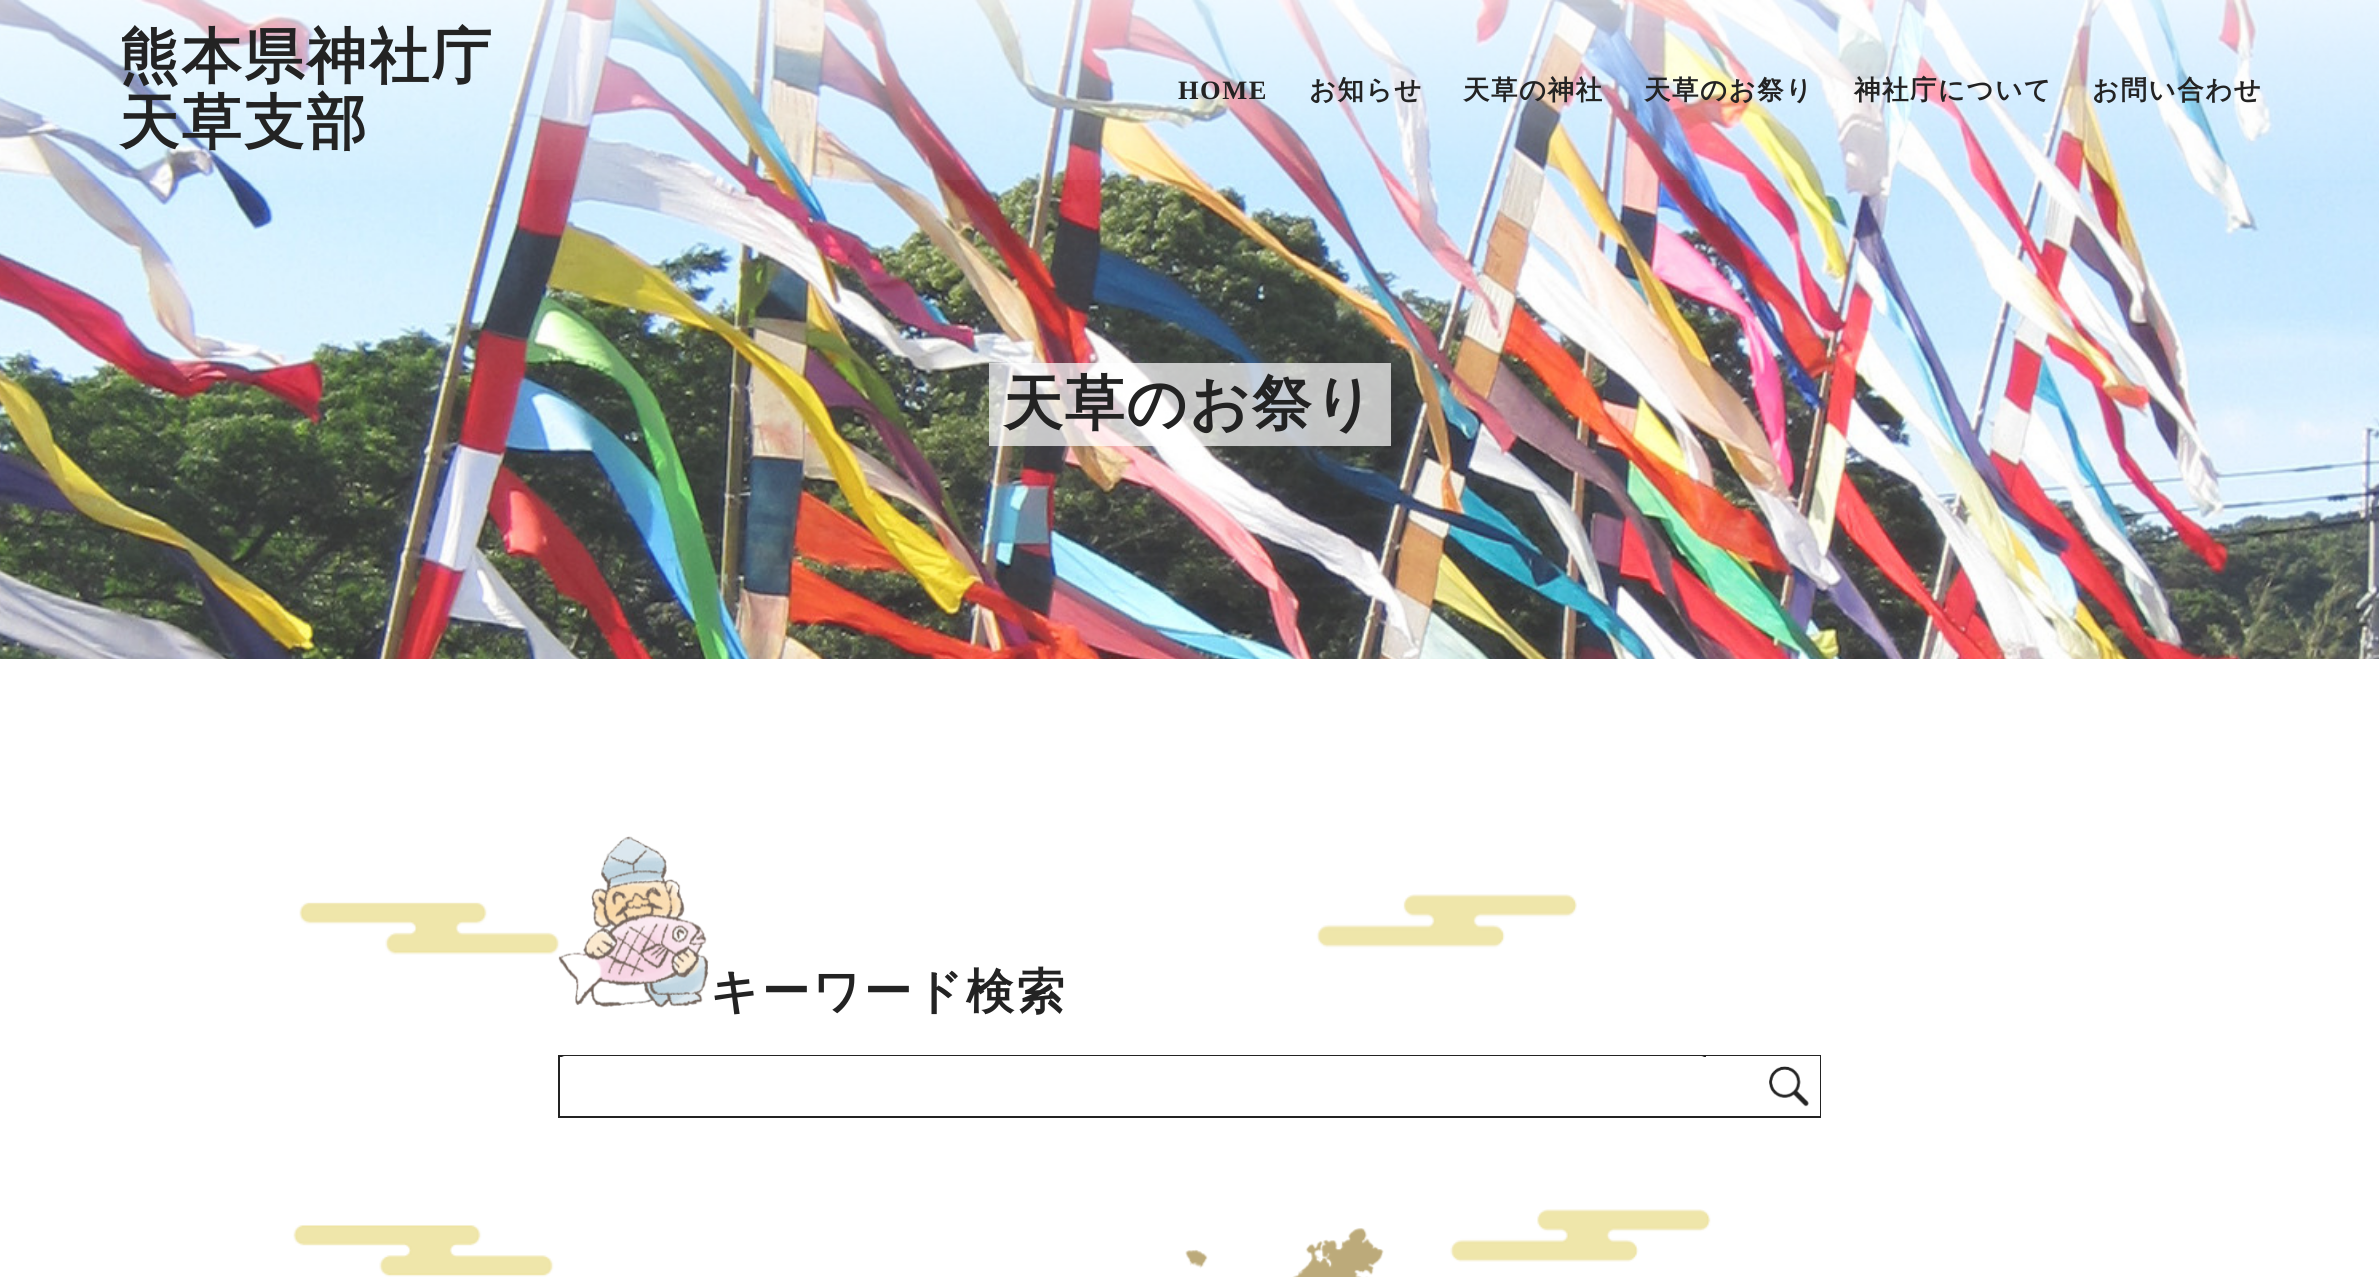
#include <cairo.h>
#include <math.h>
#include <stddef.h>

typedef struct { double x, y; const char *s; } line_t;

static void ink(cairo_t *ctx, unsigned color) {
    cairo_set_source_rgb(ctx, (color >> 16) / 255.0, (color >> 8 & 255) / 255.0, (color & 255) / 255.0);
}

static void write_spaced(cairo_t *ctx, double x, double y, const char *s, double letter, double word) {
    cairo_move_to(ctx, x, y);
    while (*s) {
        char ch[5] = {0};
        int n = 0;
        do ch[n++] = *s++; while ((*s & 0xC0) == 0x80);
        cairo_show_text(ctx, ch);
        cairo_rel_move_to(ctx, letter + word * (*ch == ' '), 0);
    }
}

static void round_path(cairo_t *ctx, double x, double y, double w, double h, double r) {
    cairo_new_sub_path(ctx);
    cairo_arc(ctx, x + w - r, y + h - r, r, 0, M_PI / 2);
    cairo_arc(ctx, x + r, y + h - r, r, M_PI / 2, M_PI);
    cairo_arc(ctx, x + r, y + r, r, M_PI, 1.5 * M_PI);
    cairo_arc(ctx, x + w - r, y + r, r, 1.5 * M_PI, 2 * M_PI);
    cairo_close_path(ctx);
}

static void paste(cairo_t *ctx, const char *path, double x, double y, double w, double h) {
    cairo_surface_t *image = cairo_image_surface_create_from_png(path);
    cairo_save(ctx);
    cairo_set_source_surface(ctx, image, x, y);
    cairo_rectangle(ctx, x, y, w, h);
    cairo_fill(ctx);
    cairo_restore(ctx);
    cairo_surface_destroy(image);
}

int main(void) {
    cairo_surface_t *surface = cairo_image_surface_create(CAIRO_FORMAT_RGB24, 2379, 1277);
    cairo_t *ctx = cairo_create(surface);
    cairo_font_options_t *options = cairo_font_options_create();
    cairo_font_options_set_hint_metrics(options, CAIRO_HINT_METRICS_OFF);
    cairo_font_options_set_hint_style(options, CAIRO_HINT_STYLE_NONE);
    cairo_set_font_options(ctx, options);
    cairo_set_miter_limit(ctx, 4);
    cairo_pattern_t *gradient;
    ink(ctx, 0xFFFFFF);
    cairo_paint(ctx);
    paste(ctx, "media/1.png", 0, 0, 2379, 659);
    gradient = cairo_pattern_create_linear(1190, 0, 1190, 180);
    cairo_pattern_add_color_stop_rgba(gradient, 0, 1, 1, 1, 0.7);
    cairo_pattern_add_color_stop_rgba(gradient, 1, 1, 1, 1, 0.05);
    cairo_set_source(ctx, gradient);
    cairo_pattern_destroy(gradient);
    cairo_rectangle(ctx, 0, 0, 2379, 180);
    cairo_fill(ctx);
    cairo_select_font_face(ctx, "WenQuanYi Zen Hei", CAIRO_FONT_SLANT_NORMAL, CAIRO_FONT_WEIGHT_BOLD);
    cairo_set_font_size(ctx, 60);
    ink(ctx, 0x232323);
    write_spaced(ctx, 119, 77, "熊本県神社庁", 2.5, 0);
    write_spaced(ctx, 119, 143, "天草支部", 2.5, 0);
    cairo_select_font_face(ctx, "Liberation Serif", CAIRO_FONT_SLANT_NORMAL, CAIRO_FONT_WEIGHT_BOLD);
    cairo_set_font_size(ctx, 26.5);
    write_spaced(ctx, 1178, 99, "HOME", 1.5, 0);
    cairo_select_font_face(ctx, "WenQuanYi Zen Hei", CAIRO_FONT_SLANT_NORMAL, CAIRO_FONT_WEIGHT_BOLD);
    {
        static const line_t items[] = {
            {1309, 99, "お知らせ"},
            {1463, 99, "天草の神社"},
            {1644, 99, "天草のお祭り"},
            {1854, 99, "神社庁について"},
            {2092, 99, "お問い合わせ"},
        };
        for (size_t i = 0; i < sizeof items / sizeof *items; i++) {
            write_spaced(ctx, items[i].x, items[i].y, items[i].s, 1.5, 0);
        }
    }
    cairo_set_source_rgba(ctx, 1, 1, 1, 0.7);
    cairo_rectangle(ctx, 989, 363, 402, 83);
    cairo_fill(ctx);
    cairo_set_font_size(ctx, 60);
    ink(ctx, 0x232323);
    write_spaced(ctx, 1003, 424, "天草のお祭り", 1.5, 0);
    paste(ctx, "media/2.png", 299, 894, 1278, 61);
    paste(ctx, "media/3.png", 558, 836, 151, 172);
    cairo_set_font_size(ctx, 48);
    write_spaced(ctx, 710, 1008, "キーワード検索", 2.5, 0);
    cairo_rectangle(ctx, 559, 1056, 1261, 61);
    cairo_stroke(ctx);
    ink(ctx, 0xFFFFFF);
    round_path(ctx, 560, 1056, 1146, 60, 5);
    cairo_fill(ctx);
    cairo_rectangle(ctx, 1706, 1056, 114, 60);
    cairo_fill(ctx);
    paste(ctx, "media/4.png", 1769, 1066, 40, 41);
    paste(ctx, "media/5.png", 293, 1209, 1418, 68);
    paste(ctx, "media/6.png", 1185, 1228, 199, 49);
    cairo_surface_write_to_png(surface, "image.png");
    cairo_font_options_destroy(options);
    cairo_destroy(ctx);
    cairo_surface_destroy(surface);
    return 0;
}
